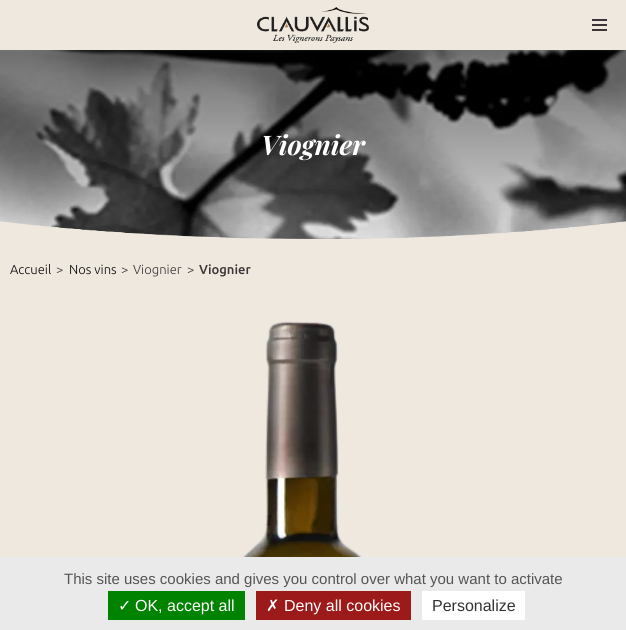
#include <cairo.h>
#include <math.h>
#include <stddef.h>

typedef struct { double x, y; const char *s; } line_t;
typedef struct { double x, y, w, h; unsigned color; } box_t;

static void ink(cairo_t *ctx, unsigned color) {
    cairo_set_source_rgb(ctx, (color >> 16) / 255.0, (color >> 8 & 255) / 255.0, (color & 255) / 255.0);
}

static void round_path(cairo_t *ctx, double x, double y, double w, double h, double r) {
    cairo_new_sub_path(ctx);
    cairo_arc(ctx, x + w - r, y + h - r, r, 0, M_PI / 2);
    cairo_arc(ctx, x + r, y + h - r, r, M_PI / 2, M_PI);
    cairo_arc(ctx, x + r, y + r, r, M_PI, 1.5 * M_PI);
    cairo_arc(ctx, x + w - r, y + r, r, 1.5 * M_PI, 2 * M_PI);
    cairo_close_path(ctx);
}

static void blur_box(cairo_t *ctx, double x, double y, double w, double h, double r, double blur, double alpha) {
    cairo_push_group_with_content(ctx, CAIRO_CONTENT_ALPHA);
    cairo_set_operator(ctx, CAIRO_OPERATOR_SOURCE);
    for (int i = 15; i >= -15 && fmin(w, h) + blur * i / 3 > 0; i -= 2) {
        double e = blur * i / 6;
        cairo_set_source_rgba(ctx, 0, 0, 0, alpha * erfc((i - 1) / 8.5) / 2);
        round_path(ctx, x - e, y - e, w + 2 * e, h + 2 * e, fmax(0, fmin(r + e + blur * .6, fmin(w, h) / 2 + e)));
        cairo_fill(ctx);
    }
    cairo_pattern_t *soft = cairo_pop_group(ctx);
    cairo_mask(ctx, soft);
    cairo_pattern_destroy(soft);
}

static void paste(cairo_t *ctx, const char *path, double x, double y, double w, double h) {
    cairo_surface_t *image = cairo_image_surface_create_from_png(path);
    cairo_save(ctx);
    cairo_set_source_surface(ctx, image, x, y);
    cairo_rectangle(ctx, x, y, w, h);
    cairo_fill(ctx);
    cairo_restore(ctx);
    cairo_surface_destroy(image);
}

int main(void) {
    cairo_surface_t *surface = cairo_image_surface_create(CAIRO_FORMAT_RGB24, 626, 630);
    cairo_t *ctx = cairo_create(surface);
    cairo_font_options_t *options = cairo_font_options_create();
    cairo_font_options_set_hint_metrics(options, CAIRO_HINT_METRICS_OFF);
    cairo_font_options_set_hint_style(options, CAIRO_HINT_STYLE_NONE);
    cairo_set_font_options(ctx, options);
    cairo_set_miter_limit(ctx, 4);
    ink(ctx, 0xEFE8DF);
    cairo_paint(ctx);
    paste(ctx, "media/2.png", 0, 50, 626, 189);
    ink(ctx, 0x8A8A8A);
    blur_box(ctx, 0, -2, 626, 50, 0, 2, 1);
    ink(ctx, 0xEFE8DF);
    cairo_rectangle(ctx, 0, 0, 626, 50);
    cairo_fill(ctx);
    paste(ctx, "media/1.png", 257, 7, 112, 36);
    {
        static const box_t items[] = {
            {592, 24, 15, 2, 0x3D3439},
            {592, 19, 15, 2, 0x3D3439},
            {592, 29, 15, 2, 0x3D3439},
        };
        for (size_t i = 0; i < sizeof items / sizeof *items; i++) {
            ink(ctx, items[i].color);
            cairo_rectangle(ctx, items[i].x, items[i].y, items[i].w, items[i].h);
            cairo_fill(ctx);
        }
    }
    cairo_select_font_face(ctx, "Playfair Display", CAIRO_FONT_SLANT_ITALIC, CAIRO_FONT_WEIGHT_BOLD);
    cairo_set_font_size(ctx, 27);
    ink(ctx, 0xFFFFFF);
    cairo_move_to(ctx, 261, 155);
    cairo_show_text(ctx, "Viognier");
    paste(ctx, "media/3.png", 0, 221, 626, 18);
    cairo_select_font_face(ctx, "Ubuntu Light", CAIRO_FONT_SLANT_NORMAL, CAIRO_FONT_WEIGHT_NORMAL);
    cairo_set_font_size(ctx, 13);
    ink(ctx, 0x0A0A0A);
    cairo_move_to(ctx, 10, 274);
    cairo_show_text(ctx, "Accueil");
    ink(ctx, 0x3D3439);
    cairo_move_to(ctx, 56, 274);
    cairo_show_text(ctx, ">");
    ink(ctx, 0x0A0A0A);
    cairo_move_to(ctx, 69, 274);
    cairo_show_text(ctx, "Nos vins");
    ink(ctx, 0x3D3439);
    {
        static const line_t items[] = {
            {121, 274, ">"},
            {133, 274, "Viognier"},
            {187, 274, ">"},
        };
        for (size_t i = 0; i < sizeof items / sizeof *items; i++) {
            cairo_move_to(ctx, items[i].x, items[i].y);
            cairo_show_text(ctx, items[i].s);
        }
    }
    cairo_select_font_face(ctx, "Ubuntu Medium", CAIRO_FONT_SLANT_NORMAL, CAIRO_FONT_WEIGHT_NORMAL);
    cairo_move_to(ctx, 199, 274);
    cairo_show_text(ctx, "Viognier");
    paste(ctx, "media/4.png", 242, 321, 121, 236);
    ink(ctx, 0xEAEAEA);
    cairo_rectangle(ctx, 0, 557, 626, 73);
    cairo_fill(ctx);
    cairo_select_font_face(ctx, "Liberation Sans", CAIRO_FONT_SLANT_NORMAL, CAIRO_FONT_WEIGHT_NORMAL);
    cairo_set_font_size(ctx, 15);
    ink(ctx, 0x555555);
    cairo_move_to(ctx, 64, 584);
    cairo_show_text(ctx, "This site uses cookies and gives you control over what you want to activate");
    ink(ctx, 0x008300);
    cairo_rectangle(ctx, 108, 591, 137, 29);
    cairo_fill(ctx);
    cairo_select_font_face(ctx, "DejaVu Sans", CAIRO_FONT_SLANT_NORMAL, CAIRO_FONT_WEIGHT_NORMAL);
    cairo_set_font_size(ctx, 16);
    ink(ctx, 0xFFFFFF);
    cairo_move_to(ctx, 118, 611);
    cairo_show_text(ctx, "✓");
    cairo_select_font_face(ctx, "Liberation Sans", CAIRO_FONT_SLANT_NORMAL, CAIRO_FONT_WEIGHT_NORMAL);
    cairo_move_to(ctx, 135, 611);
    cairo_show_text(ctx, "OK, accept all");
    ink(ctx, 0x9C1A1A);
    cairo_rectangle(ctx, 256, 591, 155, 29);
    cairo_fill(ctx);
    cairo_select_font_face(ctx, "DejaVu Sans", CAIRO_FONT_SLANT_NORMAL, CAIRO_FONT_WEIGHT_NORMAL);
    ink(ctx, 0xFFFFFF);
    cairo_move_to(ctx, 266, 611);
    cairo_show_text(ctx, "✗");
    cairo_select_font_face(ctx, "Liberation Sans", CAIRO_FONT_SLANT_NORMAL, CAIRO_FONT_WEIGHT_NORMAL);
    cairo_move_to(ctx, 284, 611);
    cairo_show_text(ctx, "Deny all cookies");
    cairo_rectangle(ctx, 422, 591, 103, 29);
    cairo_fill(ctx);
    ink(ctx, 0x333333);
    cairo_move_to(ctx, 432, 611);
    cairo_show_text(ctx, "Personalize");
    cairo_surface_write_to_png(surface, "image.png");
    cairo_font_options_destroy(options);
    cairo_destroy(ctx);
    cairo_surface_destroy(surface);
    return 0;
}
